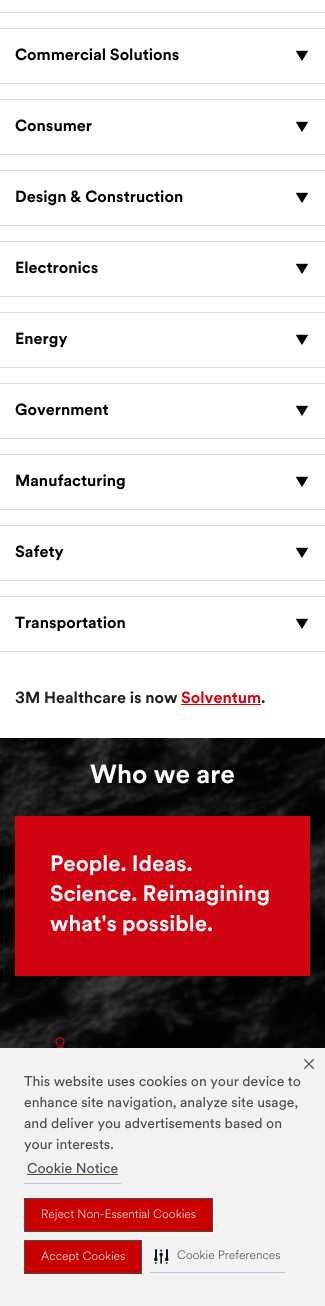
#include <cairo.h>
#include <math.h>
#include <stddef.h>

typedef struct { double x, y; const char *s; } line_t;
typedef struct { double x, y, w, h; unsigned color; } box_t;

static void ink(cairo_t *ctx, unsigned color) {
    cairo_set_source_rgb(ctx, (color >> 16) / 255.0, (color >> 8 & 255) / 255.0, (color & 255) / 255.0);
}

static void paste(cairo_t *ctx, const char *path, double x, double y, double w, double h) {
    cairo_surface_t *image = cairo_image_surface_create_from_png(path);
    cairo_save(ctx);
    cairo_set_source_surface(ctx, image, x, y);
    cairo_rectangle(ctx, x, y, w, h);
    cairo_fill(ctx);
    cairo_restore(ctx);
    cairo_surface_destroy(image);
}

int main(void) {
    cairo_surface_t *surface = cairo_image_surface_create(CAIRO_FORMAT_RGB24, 325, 1306);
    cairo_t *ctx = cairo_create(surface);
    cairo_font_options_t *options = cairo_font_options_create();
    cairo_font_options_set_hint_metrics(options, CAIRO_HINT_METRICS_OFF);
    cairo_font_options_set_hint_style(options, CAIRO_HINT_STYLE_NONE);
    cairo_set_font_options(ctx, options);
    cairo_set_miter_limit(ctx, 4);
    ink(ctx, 0xFFFFFF);
    cairo_paint(ctx);
    {
        static const box_t items[] = {
            {0, 12, 325, 1, 0xDDDDDD},
            {0, 28, 325, 1, 0xDDDDDD},
            {0, 83, 325, 1, 0xDDDDDD},
        };
        for (size_t i = 0; i < sizeof items / sizeof *items; i++) {
            ink(ctx, items[i].color);
            cairo_rectangle(ctx, items[i].x, items[i].y, items[i].w, items[i].h);
            cairo_fill(ctx);
        }
    }
    cairo_select_font_face(ctx, "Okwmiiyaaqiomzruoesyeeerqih", CAIRO_FONT_SLANT_NORMAL, CAIRO_FONT_WEIGHT_BOLD);
    cairo_set_font_size(ctx, 16);
    ink(ctx, 0x000000);
    cairo_move_to(ctx, 15, 60);
    cairo_show_text(ctx, "Commercial Solutions");
    paste(ctx, "media/1.png", 296, 50, 12, 11);
    ink(ctx, 0xDDDDDD);
    cairo_rectangle(ctx, 0, 99, 325, 1);
    cairo_fill(ctx);
    cairo_rectangle(ctx, 0, 154, 325, 1);
    cairo_fill(ctx);
    ink(ctx, 0x000000);
    cairo_move_to(ctx, 15, 131);
    cairo_show_text(ctx, "Consumer");
    paste(ctx, "media/1.png", 296, 121, 12, 11);
    ink(ctx, 0xDDDDDD);
    cairo_rectangle(ctx, 0, 170, 325, 1);
    cairo_fill(ctx);
    cairo_rectangle(ctx, 0, 225, 325, 1);
    cairo_fill(ctx);
    ink(ctx, 0x000000);
    cairo_move_to(ctx, 15, 202);
    cairo_show_text(ctx, "Design & Construction");
    paste(ctx, "media/1.png", 296, 192, 12, 11);
    ink(ctx, 0xDDDDDD);
    cairo_rectangle(ctx, 0, 241, 325, 1);
    cairo_fill(ctx);
    cairo_rectangle(ctx, 0, 296, 325, 1);
    cairo_fill(ctx);
    ink(ctx, 0x000000);
    cairo_move_to(ctx, 15, 273);
    cairo_show_text(ctx, "Electronics");
    paste(ctx, "media/1.png", 296, 263, 12, 11);
    ink(ctx, 0xDDDDDD);
    cairo_rectangle(ctx, 0, 312, 325, 1);
    cairo_fill(ctx);
    cairo_rectangle(ctx, 0, 367, 325, 1);
    cairo_fill(ctx);
    ink(ctx, 0x000000);
    cairo_move_to(ctx, 15, 344);
    cairo_show_text(ctx, "Energy");
    paste(ctx, "media/1.png", 296, 334, 12, 11);
    ink(ctx, 0xDDDDDD);
    cairo_rectangle(ctx, 0, 383, 325, 1);
    cairo_fill(ctx);
    cairo_rectangle(ctx, 0, 438, 325, 1);
    cairo_fill(ctx);
    ink(ctx, 0x000000);
    cairo_move_to(ctx, 15, 415);
    cairo_show_text(ctx, "Government");
    paste(ctx, "media/1.png", 296, 405, 12, 11);
    ink(ctx, 0xDDDDDD);
    cairo_rectangle(ctx, 0, 454, 325, 1);
    cairo_fill(ctx);
    cairo_rectangle(ctx, 0, 509, 325, 1);
    cairo_fill(ctx);
    ink(ctx, 0x000000);
    cairo_move_to(ctx, 15, 486);
    cairo_show_text(ctx, "Manufacturing");
    paste(ctx, "media/1.png", 296, 476, 12, 11);
    ink(ctx, 0xDDDDDD);
    cairo_rectangle(ctx, 0, 525, 325, 1);
    cairo_fill(ctx);
    cairo_rectangle(ctx, 0, 580, 325, 1);
    cairo_fill(ctx);
    ink(ctx, 0x000000);
    cairo_move_to(ctx, 15, 557);
    cairo_show_text(ctx, "Safety");
    paste(ctx, "media/1.png", 296, 547, 12, 11);
    ink(ctx, 0xDDDDDD);
    cairo_rectangle(ctx, 0, 596, 325, 1);
    cairo_fill(ctx);
    cairo_rectangle(ctx, 0, 651, 325, 1);
    cairo_fill(ctx);
    ink(ctx, 0x000000);
    cairo_move_to(ctx, 15, 628);
    cairo_show_text(ctx, "Transportation");
    paste(ctx, "media/1.png", 296, 618, 12, 11);
    ink(ctx, 0x202024);
    cairo_move_to(ctx, 15, 703);
    cairo_show_text(ctx, "3M Healthcare is now");
    ink(ctx, 0xD10411);
    cairo_move_to(ctx, 181, 703);
    cairo_show_text(ctx, "Solventum");
    cairo_rectangle(ctx, 181, 704, 80, 1);
    cairo_fill(ctx);
    ink(ctx, 0x202024);
    cairo_move_to(ctx, 261, 703);
    cairo_show_text(ctx, ".");
    paste(ctx, "media/2.png", 0, 738, 325, 310);
    cairo_set_font_size(ctx, 26);
    ink(ctx, 0xFFFFFF);
    cairo_move_to(ctx, 90, 783);
    cairo_show_text(ctx, "Who we are");
    ink(ctx, 0xD10411);
    cairo_rectangle(ctx, 15, 816, 295, 160);
    cairo_fill(ctx);
    cairo_set_font_size(ctx, 22);
    ink(ctx, 0xFFFFFF);
    {
        static const line_t items[] = {
            {50, 871, "People. Ideas."},
            {50, 901, "Science. Reimagining"},
            {50, 931, "what's possible."},
        };
        for (size_t i = 0; i < sizeof items / sizeof *items; i++) {
            cairo_move_to(ctx, items[i].x, items[i].y);
            cairo_show_text(ctx, items[i].s);
        }
    }
    paste(ctx, "media/3.png", 55, 1037, 10, 11);
    ink(ctx, 0xF2F2F2);
    cairo_rectangle(ctx, 0, 1048, 325, 258);
    cairo_fill(ctx);
    cairo_select_font_face(ctx, "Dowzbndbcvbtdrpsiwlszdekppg", CAIRO_FONT_SLANT_NORMAL, CAIRO_FONT_WEIGHT_NORMAL);
    cairo_set_font_size(ctx, 14);
    ink(ctx, 0x4B4B4B);
    {
        static const line_t items[] = {
            {24, 1086, "This website uses cookies on your device to"},
            {24, 1107, "enhance site navigation, analyze site usage,"},
            {24, 1128, "and deliver you advertisements based on"},
            {24, 1149, "your interests."},
        };
        for (size_t i = 0; i < sizeof items / sizeof *items; i++) {
            cairo_move_to(ctx, items[i].x, items[i].y);
            cairo_show_text(ctx, items[i].s);
        }
    }
    ink(ctx, 0xB6C2E9);
    cairo_rectangle(ctx, 24, 1183, 97, 1);
    cairo_fill(ctx);
    ink(ctx, 0x4B4B4B);
    cairo_move_to(ctx, 27, 1173);
    cairo_show_text(ctx, "Cookie Notice");
    cairo_rectangle(ctx, 27, 1174, 91, 1);
    cairo_fill(ctx);
    paste(ctx, "media/4.png", 304, 1059, 10, 10);
    ink(ctx, 0xC80000);
    cairo_rectangle(ctx, 24.5, 1198.5, 188, 33);
    cairo_fill_preserve(ctx);
    ink(ctx, 0x4B4B4B);
    cairo_set_line_width(ctx, 1);
    cairo_stroke(ctx);
    cairo_select_font_face(ctx, "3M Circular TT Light", CAIRO_FONT_SLANT_NORMAL, CAIRO_FONT_WEIGHT_NORMAL);
    cairo_set_font_size(ctx, 12);
    ink(ctx, 0xF2F2F2);
    cairo_move_to(ctx, 41, 1218);
    cairo_show_text(ctx, "Reject Non-Essential Cookies");
    ink(ctx, 0xC80000);
    cairo_rectangle(ctx, 24.5, 1240.5, 117, 33);
    cairo_fill_preserve(ctx);
    ink(ctx, 0x4B4B4B);
    cairo_stroke(ctx);
    ink(ctx, 0xF2F2F2);
    cairo_move_to(ctx, 41, 1260);
    cairo_show_text(ctx, "Accept Cookies");
    ink(ctx, 0xB6C2E9);
    cairo_rectangle(ctx, 150, 1272, 135, 1);
    cairo_fill(ctx);
    paste(ctx, "media/5.png", 154, 1249, 15, 15);
    ink(ctx, 0x4B4B4B);
    cairo_move_to(ctx, 177, 1259);
    cairo_show_text(ctx, "Cookie Preferences");
    cairo_surface_write_to_png(surface, "image.png");
    cairo_font_options_destroy(options);
    cairo_destroy(ctx);
    cairo_surface_destroy(surface);
    return 0;
}
